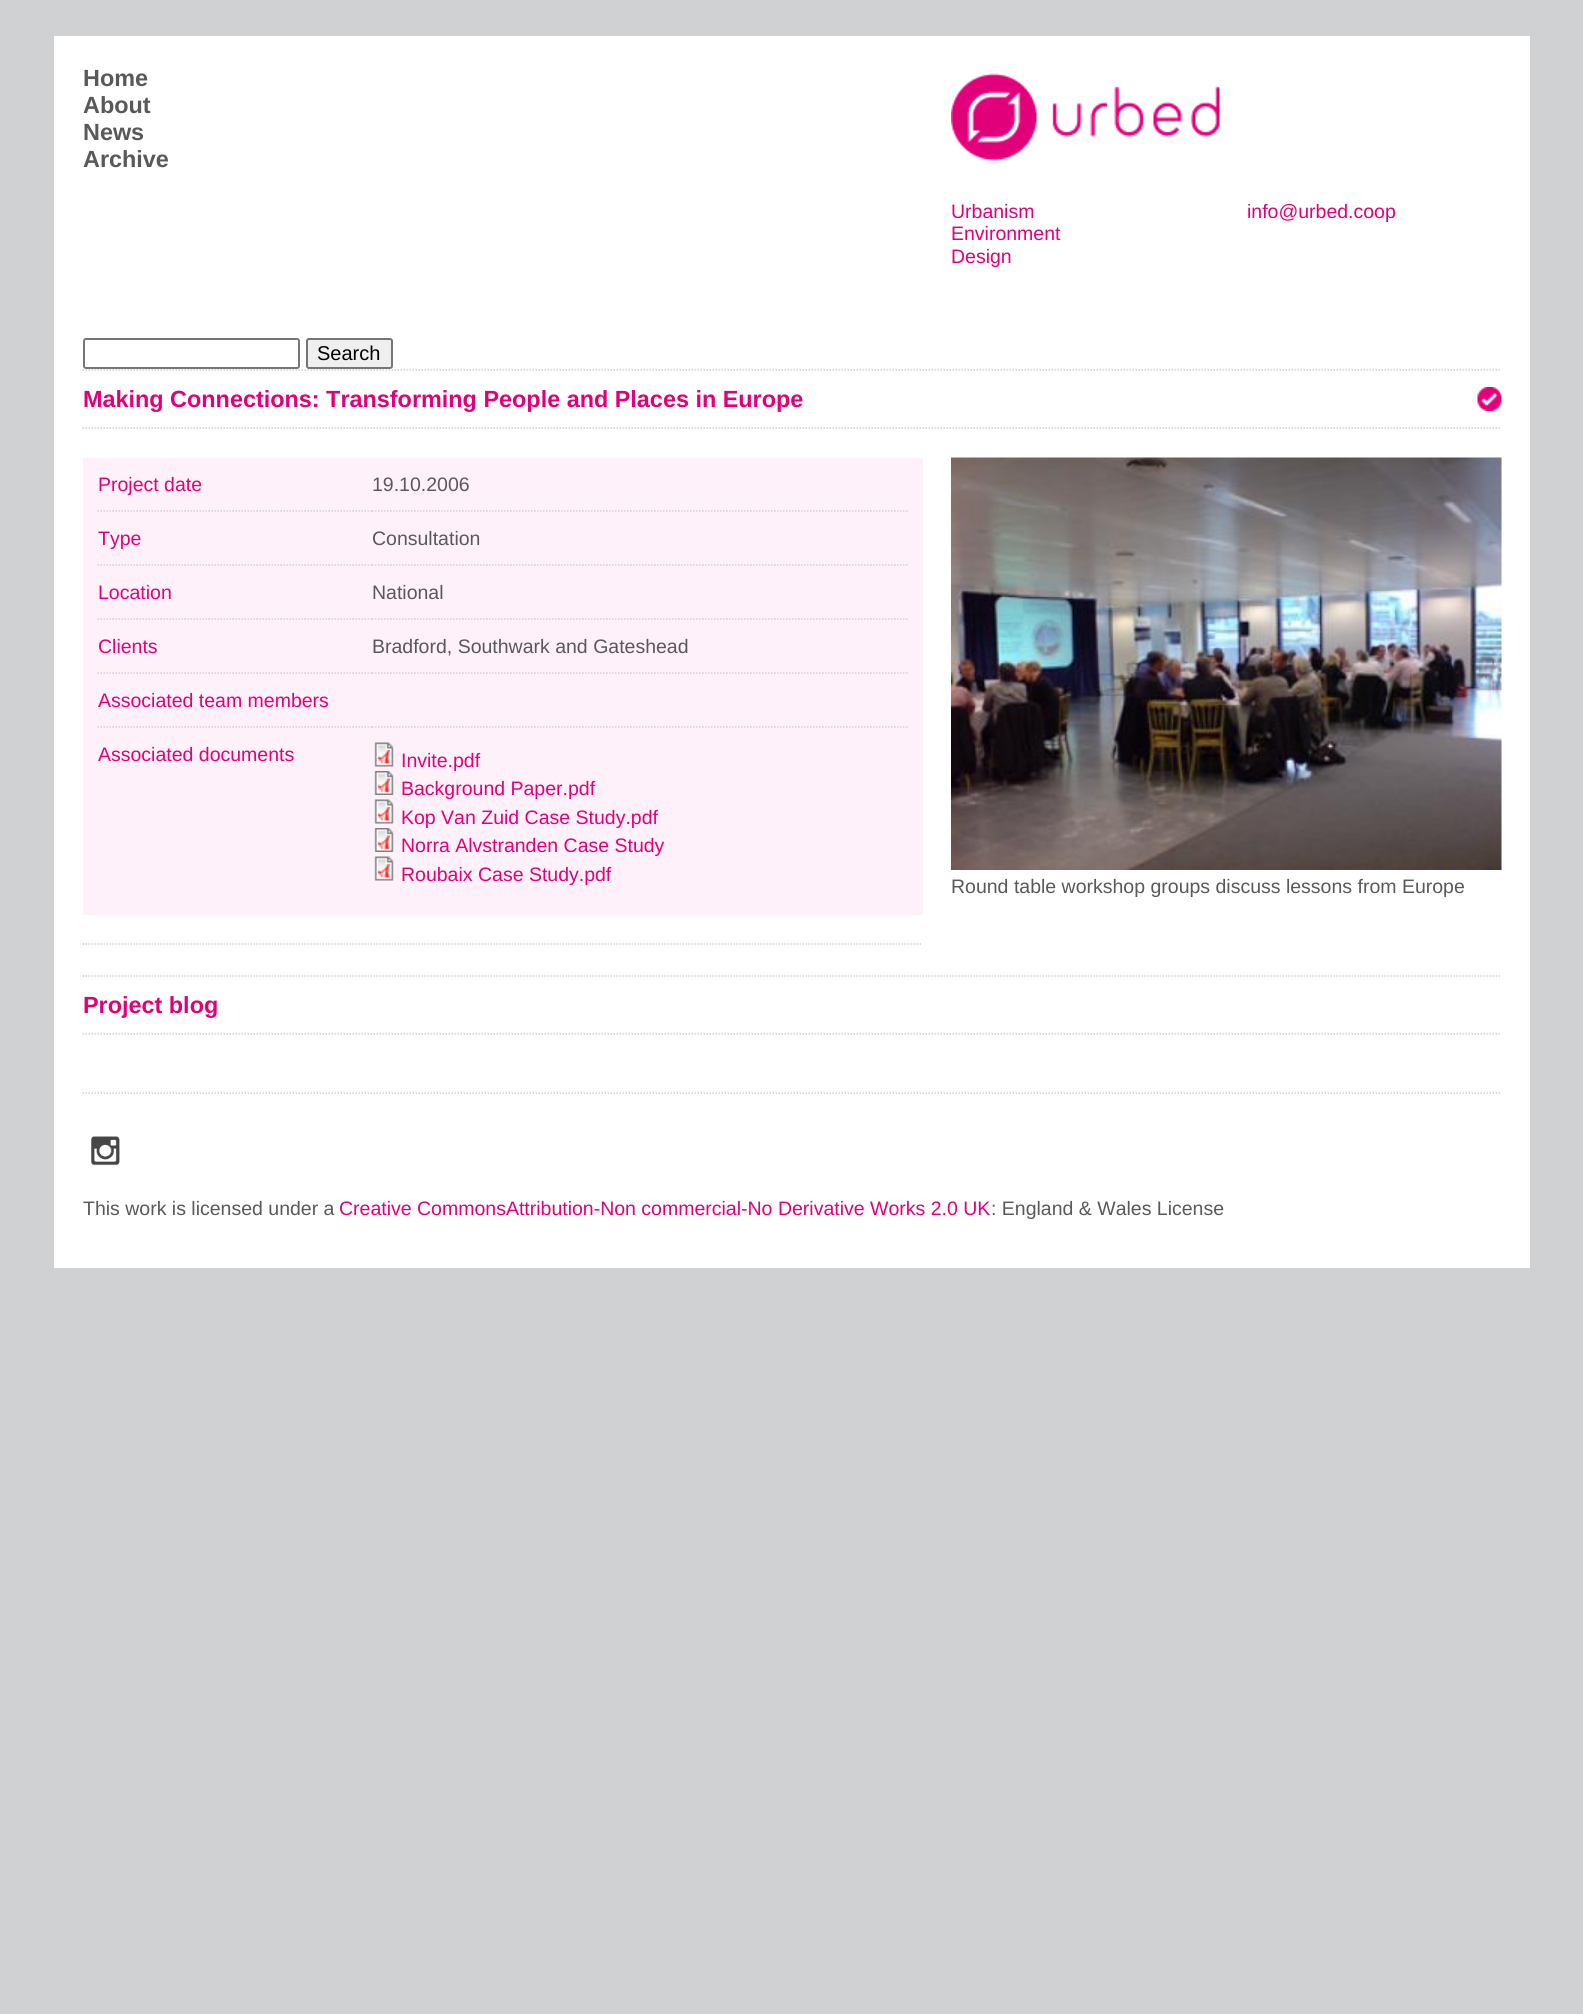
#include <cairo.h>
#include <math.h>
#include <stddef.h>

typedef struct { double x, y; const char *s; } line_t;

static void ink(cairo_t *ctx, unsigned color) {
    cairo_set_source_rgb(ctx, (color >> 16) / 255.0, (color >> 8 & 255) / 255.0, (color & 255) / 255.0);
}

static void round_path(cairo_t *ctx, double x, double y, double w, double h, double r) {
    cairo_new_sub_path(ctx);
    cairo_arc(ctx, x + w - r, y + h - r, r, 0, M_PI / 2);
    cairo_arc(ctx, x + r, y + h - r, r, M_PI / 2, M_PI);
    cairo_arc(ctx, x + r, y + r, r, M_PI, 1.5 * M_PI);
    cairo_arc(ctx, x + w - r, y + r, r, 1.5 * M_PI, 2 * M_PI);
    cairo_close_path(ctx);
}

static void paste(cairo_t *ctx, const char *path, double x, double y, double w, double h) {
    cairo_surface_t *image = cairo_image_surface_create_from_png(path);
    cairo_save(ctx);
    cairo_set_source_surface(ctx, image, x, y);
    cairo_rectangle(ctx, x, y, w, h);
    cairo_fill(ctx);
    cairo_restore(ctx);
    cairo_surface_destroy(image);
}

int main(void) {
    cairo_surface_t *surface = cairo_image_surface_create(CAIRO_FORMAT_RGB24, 1583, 2014);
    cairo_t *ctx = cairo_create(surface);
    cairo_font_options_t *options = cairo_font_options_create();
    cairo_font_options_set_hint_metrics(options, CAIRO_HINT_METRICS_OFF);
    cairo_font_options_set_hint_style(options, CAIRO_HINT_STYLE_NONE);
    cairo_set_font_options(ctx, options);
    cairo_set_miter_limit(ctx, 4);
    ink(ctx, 0xD0D1D3);
    cairo_paint(ctx);
    ink(ctx, 0xFFFFFF);
    cairo_rectangle(ctx, 54, 36, 1476, 1232);
    cairo_fill(ctx);
    cairo_select_font_face(ctx, "Liberation Sans", CAIRO_FONT_SLANT_NORMAL, CAIRO_FONT_WEIGHT_BOLD);
    cairo_set_font_size(ctx, 23.4);
    ink(ctx, 0x59595B);
    {
        static const line_t items[] = {
            {83, 86, "Home"},
            {83, 113, "About"},
            {83, 140, "News"},
            {83, 167, "Archive"},
        };
        for (size_t i = 0; i < sizeof items / sizeof *items; i++) {
            cairo_move_to(ctx, items[i].x, items[i].y);
            cairo_show_text(ctx, items[i].s);
        }
    }
    paste(ctx, "media/1.png", 951, 73, 269, 88);
    cairo_select_font_face(ctx, "Liberation Sans", CAIRO_FONT_SLANT_NORMAL, CAIRO_FONT_WEIGHT_NORMAL);
    cairo_set_font_size(ctx, 19.5);
    ink(ctx, 0xE2007A);
    {
        static const line_t items[] = {
            {951, 218, "Urbanism"},
            {951, 240, "Environment"},
            {951, 263, "Design"},
            {1247, 218, "info@urbed.coop"},
        };
        for (size_t i = 0; i < sizeof items / sizeof *items; i++) {
            cairo_move_to(ctx, items[i].x, items[i].y);
            cairo_show_text(ctx, items[i].s);
        }
    }
    round_path(ctx, 84, 339, 215, 29, 2);
    ink(ctx, 0x767676);
    cairo_stroke(ctx);
    ink(ctx, 0xEFEFEF);
    round_path(ctx, 307, 339, 85, 29, 2);
    cairo_fill_preserve(ctx);
    ink(ctx, 0x767676);
    cairo_stroke(ctx);
    cairo_set_font_size(ctx, 20);
    ink(ctx, 0x000000);
    cairo_move_to(ctx, 317, 360);
    cairo_show_text(ctx, "Search");
    paste(ctx, "media/2.png", 1477, 387, 25, 24);
    cairo_new_path(ctx);
    cairo_move_to(ctx, 82.5, 370);
    cairo_line_to(ctx, 1501.5, 370);
    ink(ctx, 0xD0D1D3);
    cairo_set_line_width(ctx, 1.5);
    cairo_set_dash(ctx, (double[]){1.5, 1.5}, 2, 0);
    cairo_stroke(ctx);
    cairo_new_path(ctx);
    cairo_move_to(ctx, 82.5, 428);
    cairo_line_to(ctx, 1501.5, 428);
    cairo_stroke(ctx);
    cairo_select_font_face(ctx, "Liberation Sans", CAIRO_FONT_SLANT_NORMAL, CAIRO_FONT_WEIGHT_BOLD);
    cairo_set_font_size(ctx, 23.4);
    ink(ctx, 0xE2007A);
    cairo_move_to(ctx, 83, 407);
    cairo_show_text(ctx, "Making Connections: Transforming People and Places in Europe");
    ink(ctx, 0xFFF1F9);
    cairo_rectangle(ctx, 83, 458, 840, 457);
    cairo_fill(ctx);
    cairo_select_font_face(ctx, "Liberation Sans", CAIRO_FONT_SLANT_NORMAL, CAIRO_FONT_WEIGHT_NORMAL);
    cairo_set_font_size(ctx, 19.5);
    ink(ctx, 0xE2007A);
    cairo_move_to(ctx, 98, 491);
    cairo_show_text(ctx, "Project date");
    ink(ctx, 0x59595B);
    cairo_move_to(ctx, 372, 491);
    cairo_show_text(ctx, "19.10.2006");
    cairo_new_path(ctx);
    cairo_move_to(ctx, 97.5, 511);
    cairo_line_to(ctx, 372, 511);
    ink(ctx, 0xD0D1D3);
    cairo_stroke(ctx);
    ink(ctx, 0xE2007A);
    cairo_move_to(ctx, 98, 545);
    cairo_show_text(ctx, "Type");
    cairo_new_path(ctx);
    cairo_move_to(ctx, 372, 511);
    cairo_line_to(ctx, 907.5, 511);
    ink(ctx, 0xD0D1D3);
    cairo_stroke(ctx);
    ink(ctx, 0x59595B);
    cairo_move_to(ctx, 372, 545);
    cairo_show_text(ctx, "Consultation");
    cairo_new_path(ctx);
    cairo_move_to(ctx, 97.5, 565);
    cairo_line_to(ctx, 372, 565);
    ink(ctx, 0xD0D1D3);
    cairo_stroke(ctx);
    ink(ctx, 0xE2007A);
    cairo_move_to(ctx, 98, 599);
    cairo_show_text(ctx, "Location");
    cairo_new_path(ctx);
    cairo_move_to(ctx, 372, 565);
    cairo_line_to(ctx, 907.5, 565);
    ink(ctx, 0xD0D1D3);
    cairo_stroke(ctx);
    ink(ctx, 0x59595B);
    cairo_move_to(ctx, 372, 599);
    cairo_show_text(ctx, "National");
    cairo_new_path(ctx);
    cairo_move_to(ctx, 97.5, 619);
    cairo_line_to(ctx, 372, 619);
    ink(ctx, 0xD0D1D3);
    cairo_stroke(ctx);
    ink(ctx, 0xE2007A);
    cairo_move_to(ctx, 98, 653);
    cairo_show_text(ctx, "Clients");
    cairo_new_path(ctx);
    cairo_move_to(ctx, 372, 619);
    cairo_line_to(ctx, 907.5, 619);
    ink(ctx, 0xD0D1D3);
    cairo_stroke(ctx);
    ink(ctx, 0x59595B);
    cairo_move_to(ctx, 372, 653);
    cairo_show_text(ctx, "Bradford, Southwark and Gateshead");
    cairo_new_path(ctx);
    cairo_move_to(ctx, 372, 673);
    cairo_line_to(ctx, 907.5, 673);
    ink(ctx, 0xD0D1D3);
    cairo_stroke(ctx);
    cairo_new_path(ctx);
    cairo_move_to(ctx, 97.5, 673);
    cairo_line_to(ctx, 372, 673);
    cairo_stroke(ctx);
    ink(ctx, 0xE2007A);
    cairo_move_to(ctx, 98, 707);
    cairo_show_text(ctx, "Associated team members");
    cairo_new_path(ctx);
    cairo_move_to(ctx, 97.5, 727);
    cairo_line_to(ctx, 372, 727);
    ink(ctx, 0xD0D1D3);
    cairo_stroke(ctx);
    ink(ctx, 0xE2007A);
    cairo_move_to(ctx, 98, 761);
    cairo_show_text(ctx, "Associated documents");
    cairo_new_path(ctx);
    cairo_move_to(ctx, 372, 727);
    cairo_line_to(ctx, 907.5, 727);
    ink(ctx, 0xD0D1D3);
    cairo_stroke(ctx);
    paste(ctx, "media/3.png", 374, 742, 20, 25);
    ink(ctx, 0xE2007A);
    cairo_move_to(ctx, 401, 767);
    cairo_show_text(ctx, "Invite.pdf");
    paste(ctx, "media/4.png", 374, 771, 20, 24);
    cairo_move_to(ctx, 401, 795);
    cairo_show_text(ctx, "Background Paper.pdf");
    paste(ctx, "media/3.png", 374, 799, 20, 25);
    cairo_move_to(ctx, 401, 824);
    cairo_show_text(ctx, "Kop Van Zuid Case Study.pdf");
    paste(ctx, "media/4.png", 374, 828, 20, 24);
    cairo_move_to(ctx, 401, 852);
    cairo_show_text(ctx, "Norra Alvstranden Case Study");
    paste(ctx, "media/3.png", 374, 856, 20, 25);
    cairo_move_to(ctx, 401, 881);
    cairo_show_text(ctx, "Roubaix Case Study.pdf");
    paste(ctx, "media/5.png", 951, 457, 551, 413);
    ink(ctx, 0x59595B);
    cairo_move_to(ctx, 951, 893);
    cairo_show_text(ctx, "Round table workshop groups discuss lessons from Europe");
    cairo_new_path(ctx);
    cairo_move_to(ctx, 82.5, 944);
    cairo_line_to(ctx, 922.5, 944);
    ink(ctx, 0xD0D1D3);
    cairo_stroke(ctx);
    cairo_new_path(ctx);
    cairo_move_to(ctx, 82.5, 976);
    cairo_line_to(ctx, 1501.5, 976);
    cairo_stroke(ctx);
    cairo_new_path(ctx);
    cairo_move_to(ctx, 82.5, 1034);
    cairo_line_to(ctx, 1501.5, 1034);
    cairo_stroke(ctx);
    cairo_select_font_face(ctx, "Liberation Sans", CAIRO_FONT_SLANT_NORMAL, CAIRO_FONT_WEIGHT_BOLD);
    cairo_set_font_size(ctx, 23.4);
    ink(ctx, 0xE2007A);
    cairo_move_to(ctx, 83, 1013);
    cairo_show_text(ctx, "Project blog");
    cairo_new_path(ctx);
    cairo_move_to(ctx, 82.5, 1093);
    cairo_line_to(ctx, 1501.5, 1093);
    ink(ctx, 0xD0D1D3);
    cairo_stroke(ctx);
    paste(ctx, "media/6.png", 91, 1136, 29, 30);
    cairo_select_font_face(ctx, "Liberation Sans", CAIRO_FONT_SLANT_NORMAL, CAIRO_FONT_WEIGHT_NORMAL);
    cairo_set_font_size(ctx, 19.5);
    ink(ctx, 0x59595B);
    cairo_move_to(ctx, 83, 1215);
    cairo_show_text(ctx, "This work is licensed under a");
    ink(ctx, 0xE2007A);
    cairo_move_to(ctx, 339, 1215);
    cairo_show_text(ctx, "Creative CommonsAttribution-Non commercial-No Derivative Works 2.0 UK");
    ink(ctx, 0x59595B);
    cairo_move_to(ctx, 991, 1215);
    cairo_show_text(ctx, ": England & Wales License");
    cairo_surface_write_to_png(surface, "image.png");
    cairo_font_options_destroy(options);
    cairo_destroy(ctx);
    cairo_surface_destroy(surface);
    return 0;
}
